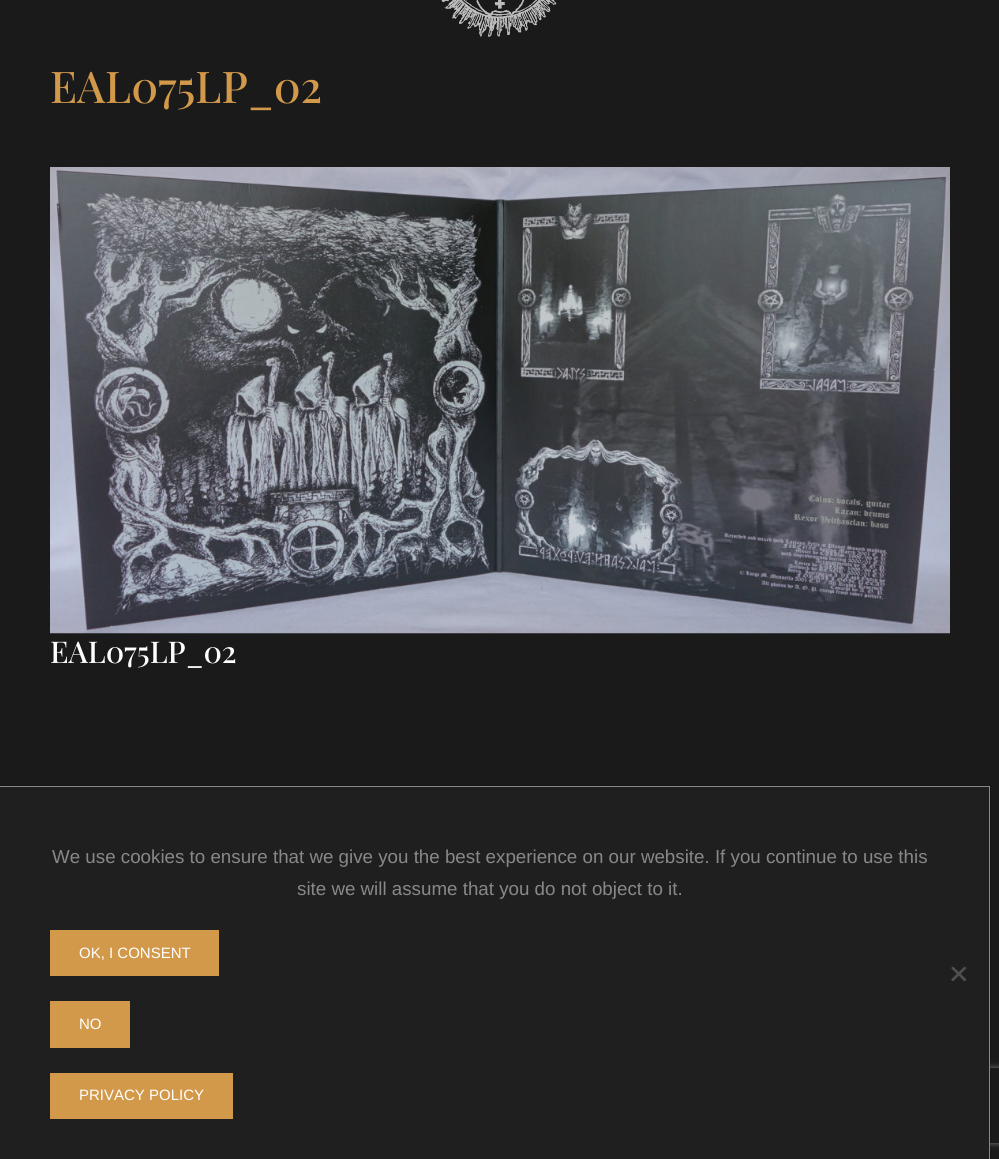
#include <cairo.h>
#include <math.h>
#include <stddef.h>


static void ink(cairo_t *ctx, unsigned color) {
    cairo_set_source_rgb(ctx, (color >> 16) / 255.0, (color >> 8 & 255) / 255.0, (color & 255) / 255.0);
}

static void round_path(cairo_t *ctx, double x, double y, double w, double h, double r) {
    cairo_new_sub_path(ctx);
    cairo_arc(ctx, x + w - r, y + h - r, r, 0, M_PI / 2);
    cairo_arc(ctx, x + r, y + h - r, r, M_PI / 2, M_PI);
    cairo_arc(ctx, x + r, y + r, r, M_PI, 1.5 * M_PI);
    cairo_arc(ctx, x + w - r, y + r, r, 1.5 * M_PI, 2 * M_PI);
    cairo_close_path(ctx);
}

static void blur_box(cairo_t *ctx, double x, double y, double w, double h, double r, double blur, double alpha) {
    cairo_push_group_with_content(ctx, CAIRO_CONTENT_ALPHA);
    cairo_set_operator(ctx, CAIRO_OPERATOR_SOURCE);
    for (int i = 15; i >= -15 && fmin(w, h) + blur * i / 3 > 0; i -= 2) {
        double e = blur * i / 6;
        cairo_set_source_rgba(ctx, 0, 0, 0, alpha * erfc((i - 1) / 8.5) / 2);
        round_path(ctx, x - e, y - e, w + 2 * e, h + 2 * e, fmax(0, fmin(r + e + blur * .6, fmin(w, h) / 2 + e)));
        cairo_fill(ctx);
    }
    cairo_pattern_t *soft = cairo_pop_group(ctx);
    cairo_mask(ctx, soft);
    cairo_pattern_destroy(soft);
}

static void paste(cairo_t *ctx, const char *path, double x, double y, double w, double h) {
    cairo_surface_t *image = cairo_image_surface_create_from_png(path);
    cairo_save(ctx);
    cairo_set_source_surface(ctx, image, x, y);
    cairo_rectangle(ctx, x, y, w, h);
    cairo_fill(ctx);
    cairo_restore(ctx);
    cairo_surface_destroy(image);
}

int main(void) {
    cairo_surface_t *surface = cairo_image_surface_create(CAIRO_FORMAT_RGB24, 999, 1159);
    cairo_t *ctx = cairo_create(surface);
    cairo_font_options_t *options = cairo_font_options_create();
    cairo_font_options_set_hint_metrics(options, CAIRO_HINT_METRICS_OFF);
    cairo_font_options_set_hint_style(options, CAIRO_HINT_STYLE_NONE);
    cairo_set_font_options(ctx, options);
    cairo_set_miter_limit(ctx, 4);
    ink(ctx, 0x1A1A1A);
    cairo_paint(ctx);
    paste(ctx, "media/1.png", 441, 0, 116, 37);
    cairo_select_font_face(ctx, "Playfair Display Medium", CAIRO_FONT_SLANT_NORMAL, CAIRO_FONT_WEIGHT_NORMAL);
    cairo_set_font_size(ctx, 43.75);
    ink(ctx, 0xD3994A);
    cairo_move_to(ctx, 50, 103);
    cairo_show_text(ctx, "EAL075LP_02");
    paste(ctx, "media/2.png", 50, 167, 900, 467);
    cairo_set_font_size(ctx, 30);
    ink(ctx, 0xFFFFFF);
    cairo_move_to(ctx, 50, 663);
    cairo_show_text(ctx, "EAL075LP_02");
    ink(ctx, 0x000000);
    blur_box(ctx, -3, 785, 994, 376, 0, 1, 0.15);
    cairo_save(ctx);
    cairo_set_fill_rule(ctx, CAIRO_FILL_RULE_EVEN_ODD);
    cairo_new_path(ctx);
    cairo_move_to(ctx, 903, 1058);
    cairo_line_to(ctx, 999, 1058);
    cairo_line_to(ctx, 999, 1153);
    cairo_line_to(ctx, 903, 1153);
    cairo_close_path(ctx);
    cairo_move_to(ctx, 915.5, 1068);
    cairo_line_to(ctx, 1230.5, 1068);
    cairo_curve_to(ctx, 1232, 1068, 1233, 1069, 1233, 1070.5);
    cairo_line_to(ctx, 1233, 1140.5);
    cairo_curve_to(ctx, 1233, 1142, 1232, 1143, 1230.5, 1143);
    cairo_line_to(ctx, 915.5, 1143);
    cairo_curve_to(ctx, 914, 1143, 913, 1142, 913, 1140.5);
    cairo_line_to(ctx, 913, 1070.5);
    cairo_curve_to(ctx, 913, 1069, 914, 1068, 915.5, 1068);
    cairo_close_path(ctx);
    cairo_clip(ctx);
    ink(ctx, 0x808080);
    blur_box(ctx, 913, 1068, 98, 75, 2.5, 3, 1);
    cairo_restore(ctx);
    ink(ctx, 0x1F1F1F);
    cairo_rectangle(ctx, -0.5, 786.5, 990, 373);
    cairo_fill_preserve(ctx);
    ink(ctx, 0x888888);
    cairo_set_line_width(ctx, 1);
    cairo_stroke(ctx);
    cairo_select_font_face(ctx, "Liberation Sans", CAIRO_FONT_SLANT_NORMAL, CAIRO_FONT_WEIGHT_NORMAL);
    cairo_set_font_size(ctx, 18.75);
    cairo_move_to(ctx, 52, 863);
    cairo_show_text(ctx, "We use cookies to ensure that we give you the best experience on our website. If you continue to use this");
    cairo_move_to(ctx, 297, 895);
    cairo_show_text(ctx, "site we will assume that you do not object to it.");
    ink(ctx, 0xD3994A);
    cairo_rectangle(ctx, 50, 930, 169, 46);
    cairo_fill(ctx);
    cairo_set_font_size(ctx, 15);
    ink(ctx, 0xFFFFFF);
    cairo_move_to(ctx, 79, 958);
    cairo_show_text(ctx, "OK, I CONSENT");
    ink(ctx, 0xD3994A);
    cairo_rectangle(ctx, 50, 1001, 80, 47);
    cairo_fill(ctx);
    ink(ctx, 0xFFFFFF);
    cairo_move_to(ctx, 79, 1029);
    cairo_show_text(ctx, "NO");
    ink(ctx, 0xD3994A);
    cairo_rectangle(ctx, 50, 1073, 183, 46);
    cairo_fill(ctx);
    ink(ctx, 0xFFFFFF);
    cairo_move_to(ctx, 79, 1100);
    cairo_show_text(ctx, "PRIVACY POLICY");
    ink(ctx, 0x505050);
    cairo_new_path(ctx);
    cairo_move_to(ctx, 964.5, 966.5);
    cairo_line_to(ctx, 966.5, 968);
    cairo_line_to(ctx, 953, 981.5);
    cairo_line_to(ctx, 951, 979.5);
    cairo_close_path(ctx);
    cairo_fill(ctx);
    cairo_new_path(ctx);
    cairo_move_to(ctx, 951, 968);
    cairo_line_to(ctx, 953, 966.5);
    cairo_line_to(ctx, 966.5, 979.5);
    cairo_line_to(ctx, 964.5, 981.5);
    cairo_close_path(ctx);
    cairo_fill(ctx);
    cairo_surface_write_to_png(surface, "image.png");
    cairo_font_options_destroy(options);
    cairo_destroy(ctx);
    cairo_surface_destroy(surface);
    return 0;
}
